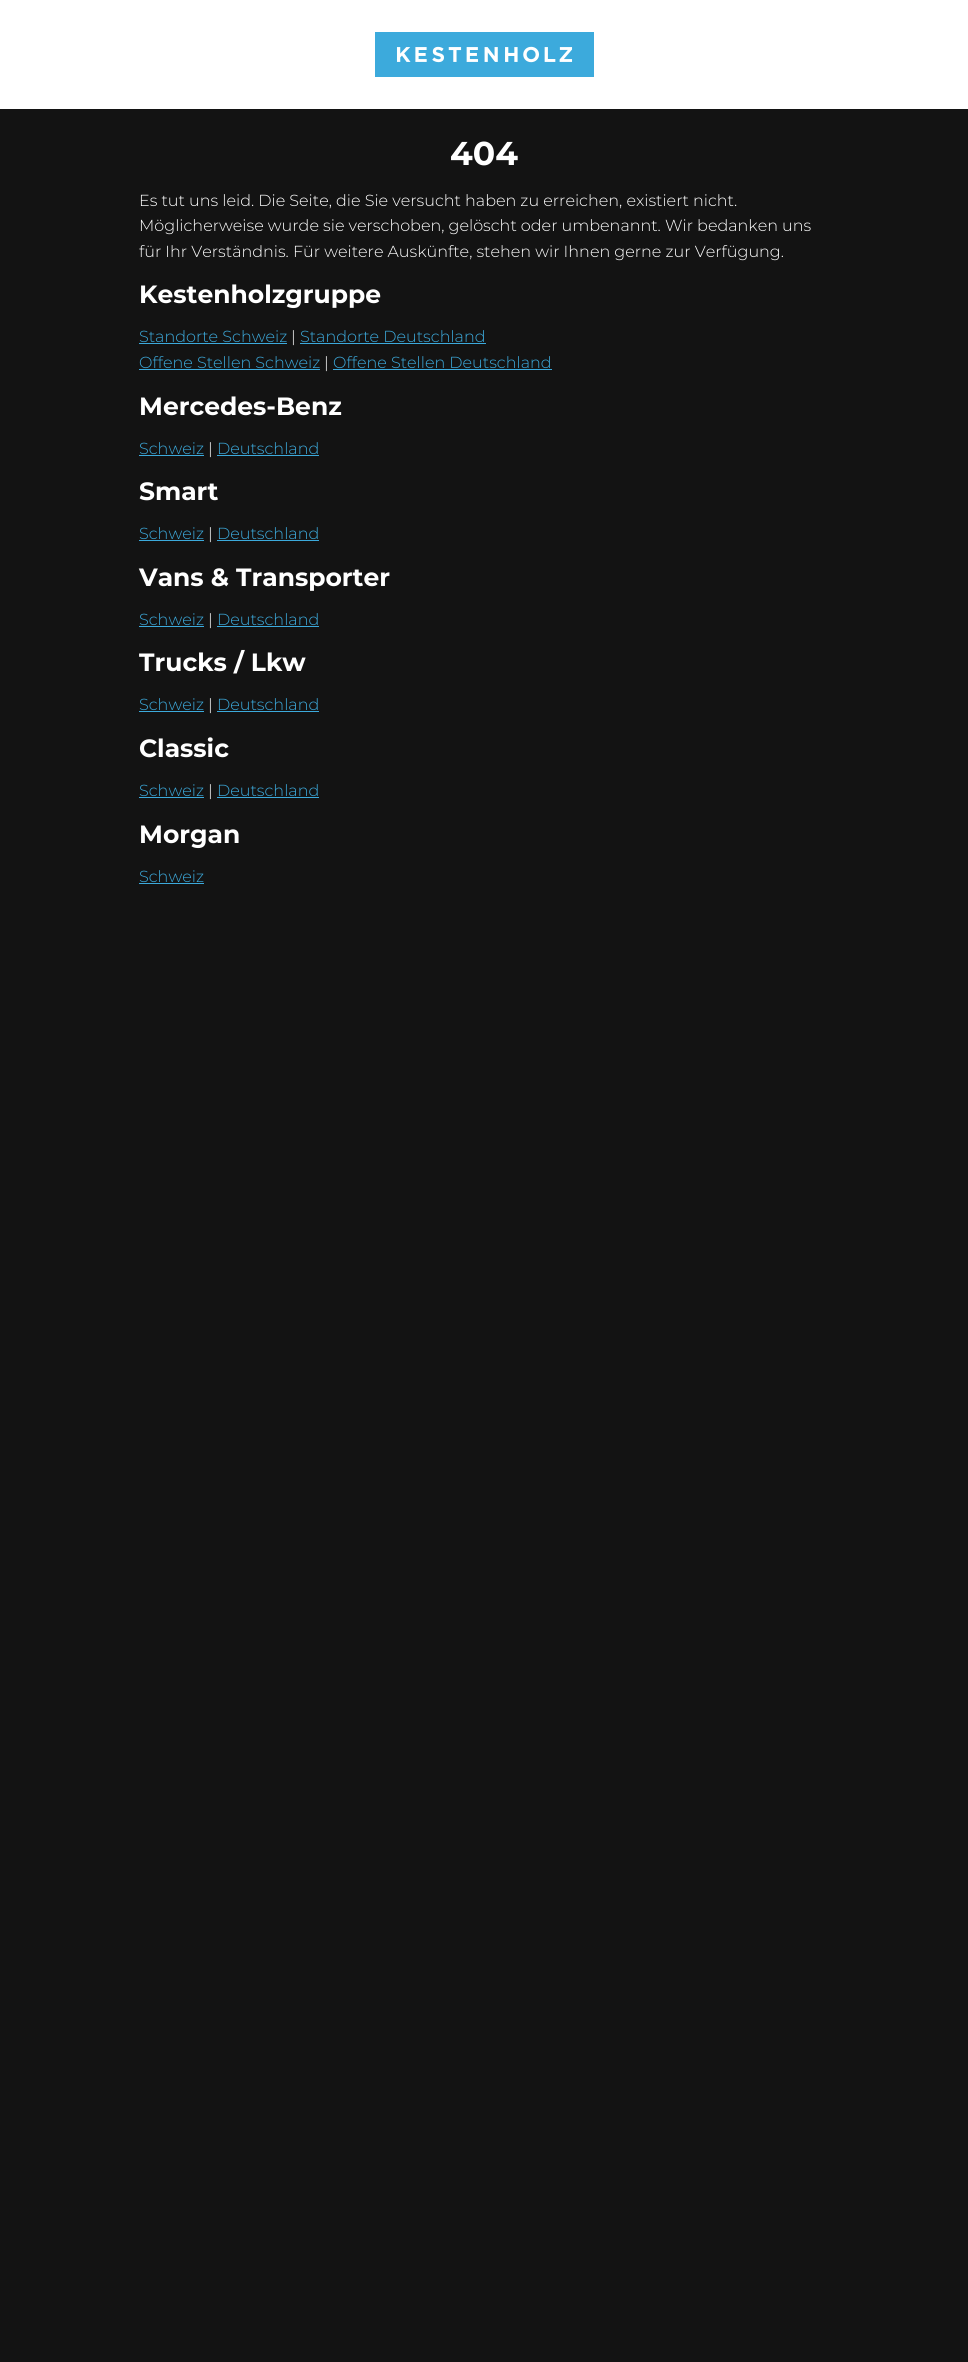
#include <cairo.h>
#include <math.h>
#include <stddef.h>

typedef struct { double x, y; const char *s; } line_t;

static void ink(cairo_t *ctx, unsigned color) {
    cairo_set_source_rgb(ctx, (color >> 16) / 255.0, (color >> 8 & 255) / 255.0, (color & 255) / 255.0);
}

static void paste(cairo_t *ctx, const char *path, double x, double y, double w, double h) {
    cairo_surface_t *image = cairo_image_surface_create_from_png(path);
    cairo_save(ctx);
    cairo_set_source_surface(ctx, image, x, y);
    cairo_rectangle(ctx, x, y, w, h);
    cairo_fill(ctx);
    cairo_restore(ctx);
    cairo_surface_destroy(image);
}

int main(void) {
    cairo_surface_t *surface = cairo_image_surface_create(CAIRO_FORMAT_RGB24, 968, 2362);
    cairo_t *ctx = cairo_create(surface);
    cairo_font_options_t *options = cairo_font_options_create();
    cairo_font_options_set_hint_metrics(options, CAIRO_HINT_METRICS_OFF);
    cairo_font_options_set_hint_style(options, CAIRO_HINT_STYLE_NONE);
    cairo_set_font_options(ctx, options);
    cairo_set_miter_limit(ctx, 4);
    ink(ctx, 0x131313);
    cairo_paint(ctx);
    ink(ctx, 0xFFFFFF);
    cairo_rectangle(ctx, 0, 0, 968, 109);
    cairo_fill(ctx);
    paste(ctx, "media/1.png", 375, 32, 219, 45);
    cairo_select_font_face(ctx, "Montserrat", CAIRO_FONT_SLANT_NORMAL, CAIRO_FONT_WEIGHT_BOLD);
    cairo_set_font_size(ctx, 33);
    cairo_move_to(ctx, 450, 165);
    cairo_show_text(ctx, "404");
    cairo_select_font_face(ctx, "Montserrat Light", CAIRO_FONT_SLANT_NORMAL, CAIRO_FONT_WEIGHT_NORMAL);
    cairo_set_font_size(ctx, 16);
    {
        static const line_t items[] = {
            {139, 206, "Es tut uns leid. Die Seite, die Sie versucht haben zu erreichen, existiert nicht."},
            {139, 231, "Möglicherweise wurde sie verschoben, gelöscht oder umbenannt. Wir bedanken uns"},
            {139, 257, "für Ihr Verständnis. Für weitere Auskünfte, stehen wir Ihnen gerne zur Verfügung."},
        };
        for (size_t i = 0; i < sizeof items / sizeof *items; i++) {
            cairo_move_to(ctx, items[i].x, items[i].y);
            cairo_show_text(ctx, items[i].s);
        }
    }
    cairo_select_font_face(ctx, "Montserrat", CAIRO_FONT_SLANT_NORMAL, CAIRO_FONT_WEIGHT_BOLD);
    cairo_set_font_size(ctx, 25);
    cairo_move_to(ctx, 139, 303);
    cairo_show_text(ctx, "Kestenholzgruppe");
    cairo_select_font_face(ctx, "Montserrat Light", CAIRO_FONT_SLANT_NORMAL, CAIRO_FONT_WEIGHT_NORMAL);
    cairo_set_font_size(ctx, 16);
    ink(ctx, 0x3CAADC);
    cairo_move_to(ctx, 139, 342);
    cairo_show_text(ctx, "Standorte Schweiz");
    cairo_rectangle(ctx, 139, 343, 148, 1);
    cairo_fill(ctx);
    ink(ctx, 0xFFFFFF);
    cairo_move_to(ctx, 291, 342);
    cairo_show_text(ctx, "|");
    ink(ctx, 0x3CAADC);
    cairo_move_to(ctx, 300, 342);
    cairo_show_text(ctx, "Standorte Deutschland");
    cairo_rectangle(ctx, 300, 343, 186, 1);
    cairo_fill(ctx);
    cairo_move_to(ctx, 139, 368);
    cairo_show_text(ctx, "Offene Stellen Schweiz");
    cairo_rectangle(ctx, 139, 369, 181, 1);
    cairo_fill(ctx);
    ink(ctx, 0xFFFFFF);
    cairo_move_to(ctx, 324, 368);
    cairo_show_text(ctx, "|");
    ink(ctx, 0x3CAADC);
    cairo_move_to(ctx, 333, 368);
    cairo_show_text(ctx, "Offene Stellen Deutschland");
    cairo_rectangle(ctx, 333, 369, 219, 1);
    cairo_fill(ctx);
    cairo_select_font_face(ctx, "Montserrat", CAIRO_FONT_SLANT_NORMAL, CAIRO_FONT_WEIGHT_BOLD);
    cairo_set_font_size(ctx, 25);
    ink(ctx, 0xFFFFFF);
    cairo_move_to(ctx, 139, 415);
    cairo_show_text(ctx, "Mercedes-Benz");
    cairo_select_font_face(ctx, "Montserrat Light", CAIRO_FONT_SLANT_NORMAL, CAIRO_FONT_WEIGHT_NORMAL);
    cairo_set_font_size(ctx, 16);
    ink(ctx, 0x3CAADC);
    cairo_move_to(ctx, 139, 454);
    cairo_show_text(ctx, "Schweiz");
    cairo_rectangle(ctx, 139, 455, 65, 1);
    cairo_fill(ctx);
    ink(ctx, 0xFFFFFF);
    cairo_move_to(ctx, 208, 454);
    cairo_show_text(ctx, "|");
    ink(ctx, 0x3CAADC);
    cairo_move_to(ctx, 217, 454);
    cairo_show_text(ctx, "Deutschland");
    cairo_rectangle(ctx, 217, 455, 102, 1);
    cairo_fill(ctx);
    cairo_select_font_face(ctx, "Montserrat", CAIRO_FONT_SLANT_NORMAL, CAIRO_FONT_WEIGHT_BOLD);
    cairo_set_font_size(ctx, 25);
    ink(ctx, 0xFFFFFF);
    cairo_move_to(ctx, 139, 500);
    cairo_show_text(ctx, "Smart");
    cairo_select_font_face(ctx, "Montserrat Light", CAIRO_FONT_SLANT_NORMAL, CAIRO_FONT_WEIGHT_NORMAL);
    cairo_set_font_size(ctx, 16);
    ink(ctx, 0x3CAADC);
    cairo_move_to(ctx, 139, 539);
    cairo_show_text(ctx, "Schweiz");
    cairo_rectangle(ctx, 139, 540, 65, 1);
    cairo_fill(ctx);
    ink(ctx, 0xFFFFFF);
    cairo_move_to(ctx, 208, 539);
    cairo_show_text(ctx, "|");
    ink(ctx, 0x3CAADC);
    cairo_move_to(ctx, 217, 539);
    cairo_show_text(ctx, "Deutschland");
    cairo_rectangle(ctx, 217, 540, 102, 1);
    cairo_fill(ctx);
    cairo_select_font_face(ctx, "Montserrat", CAIRO_FONT_SLANT_NORMAL, CAIRO_FONT_WEIGHT_BOLD);
    cairo_set_font_size(ctx, 25);
    ink(ctx, 0xFFFFFF);
    cairo_move_to(ctx, 139, 586);
    cairo_show_text(ctx, "Vans & Transporter");
    cairo_select_font_face(ctx, "Montserrat Light", CAIRO_FONT_SLANT_NORMAL, CAIRO_FONT_WEIGHT_NORMAL);
    cairo_set_font_size(ctx, 16);
    ink(ctx, 0x3CAADC);
    cairo_move_to(ctx, 139, 625);
    cairo_show_text(ctx, "Schweiz");
    cairo_rectangle(ctx, 139, 626, 65, 1);
    cairo_fill(ctx);
    ink(ctx, 0xFFFFFF);
    cairo_move_to(ctx, 208, 625);
    cairo_show_text(ctx, "|");
    ink(ctx, 0x3CAADC);
    cairo_move_to(ctx, 217, 625);
    cairo_show_text(ctx, "Deutschland");
    cairo_rectangle(ctx, 217, 626, 102, 1);
    cairo_fill(ctx);
    cairo_select_font_face(ctx, "Montserrat", CAIRO_FONT_SLANT_NORMAL, CAIRO_FONT_WEIGHT_BOLD);
    cairo_set_font_size(ctx, 25);
    ink(ctx, 0xFFFFFF);
    cairo_move_to(ctx, 139, 671);
    cairo_show_text(ctx, "Trucks / Lkw");
    cairo_select_font_face(ctx, "Montserrat Light", CAIRO_FONT_SLANT_NORMAL, CAIRO_FONT_WEIGHT_NORMAL);
    cairo_set_font_size(ctx, 16);
    ink(ctx, 0x3CAADC);
    cairo_move_to(ctx, 139, 710);
    cairo_show_text(ctx, "Schweiz");
    cairo_rectangle(ctx, 139, 711, 65, 1);
    cairo_fill(ctx);
    ink(ctx, 0xFFFFFF);
    cairo_move_to(ctx, 208, 710);
    cairo_show_text(ctx, "|");
    ink(ctx, 0x3CAADC);
    cairo_move_to(ctx, 217, 710);
    cairo_show_text(ctx, "Deutschland");
    cairo_rectangle(ctx, 217, 711, 102, 1);
    cairo_fill(ctx);
    cairo_select_font_face(ctx, "Montserrat", CAIRO_FONT_SLANT_NORMAL, CAIRO_FONT_WEIGHT_BOLD);
    cairo_set_font_size(ctx, 25);
    ink(ctx, 0xFFFFFF);
    cairo_move_to(ctx, 139, 757);
    cairo_show_text(ctx, "Classic");
    cairo_select_font_face(ctx, "Montserrat Light", CAIRO_FONT_SLANT_NORMAL, CAIRO_FONT_WEIGHT_NORMAL);
    cairo_set_font_size(ctx, 16);
    ink(ctx, 0x3CAADC);
    cairo_move_to(ctx, 139, 796);
    cairo_show_text(ctx, "Schweiz");
    cairo_rectangle(ctx, 139, 797, 65, 1);
    cairo_fill(ctx);
    ink(ctx, 0xFFFFFF);
    cairo_move_to(ctx, 208, 796);
    cairo_show_text(ctx, "|");
    ink(ctx, 0x3CAADC);
    cairo_move_to(ctx, 217, 796);
    cairo_show_text(ctx, "Deutschland");
    cairo_rectangle(ctx, 217, 797, 102, 1);
    cairo_fill(ctx);
    cairo_select_font_face(ctx, "Montserrat", CAIRO_FONT_SLANT_NORMAL, CAIRO_FONT_WEIGHT_BOLD);
    cairo_set_font_size(ctx, 25);
    ink(ctx, 0xFFFFFF);
    cairo_move_to(ctx, 139, 843);
    cairo_show_text(ctx, "Morgan");
    cairo_select_font_face(ctx, "Montserrat Light", CAIRO_FONT_SLANT_NORMAL, CAIRO_FONT_WEIGHT_NORMAL);
    cairo_set_font_size(ctx, 16);
    ink(ctx, 0x3CAADC);
    cairo_move_to(ctx, 139, 882);
    cairo_show_text(ctx, "Schweiz");
    cairo_rectangle(ctx, 139, 883, 65, 1);
    cairo_fill(ctx);
    cairo_surface_write_to_png(surface, "image.png");
    cairo_font_options_destroy(options);
    cairo_destroy(ctx);
    cairo_surface_destroy(surface);
    return 0;
}
